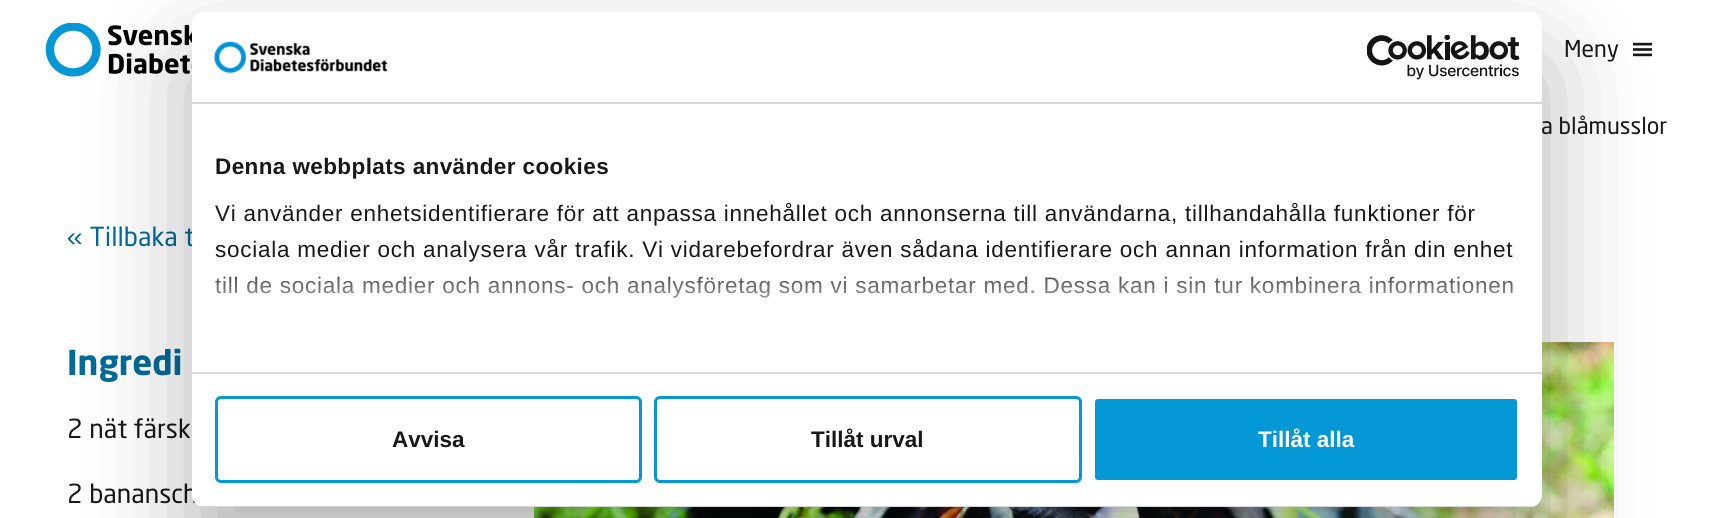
#include <cairo.h>
#include <math.h>
#include <stddef.h>

typedef struct { double x, y; const char *s; } line_t;

static void ink(cairo_t *ctx, unsigned color) {
    cairo_set_source_rgb(ctx, (color >> 16) / 255.0, (color >> 8 & 255) / 255.0, (color & 255) / 255.0);
}

static void write_spaced(cairo_t *ctx, double x, double y, const char *s, double letter, double word) {
    cairo_move_to(ctx, x, y);
    while (*s) {
        char ch[5] = {0};
        int n = 0;
        do ch[n++] = *s++; while ((*s & 0xC0) == 0x80);
        cairo_show_text(ctx, ch);
        cairo_rel_move_to(ctx, letter + word * (*ch == ' '), 0);
    }
}

static void round_path(cairo_t *ctx, double x, double y, double w, double h, double r) {
    cairo_new_sub_path(ctx);
    cairo_arc(ctx, x + w - r, y + h - r, r, 0, M_PI / 2);
    cairo_arc(ctx, x + r, y + h - r, r, M_PI / 2, M_PI);
    cairo_arc(ctx, x + r, y + r, r, M_PI, 1.5 * M_PI);
    cairo_arc(ctx, x + w - r, y + r, r, 1.5 * M_PI, 2 * M_PI);
    cairo_close_path(ctx);
}

static void blur_box(cairo_t *ctx, double x, double y, double w, double h, double r, double blur, double alpha) {
    cairo_push_group_with_content(ctx, CAIRO_CONTENT_ALPHA);
    cairo_set_operator(ctx, CAIRO_OPERATOR_SOURCE);
    for (int i = 15; i >= -15 && fmin(w, h) + blur * i / 3 > 0; i -= 2) {
        double e = blur * i / 6;
        cairo_set_source_rgba(ctx, 0, 0, 0, alpha * erfc((i - 1) / 8.5) / 2);
        round_path(ctx, x - e, y - e, w + 2 * e, h + 2 * e, fmax(0, fmin(r + e + blur * .6, fmin(w, h) / 2 + e)));
        cairo_fill(ctx);
    }
    cairo_pattern_t *soft = cairo_pop_group(ctx);
    cairo_mask(ctx, soft);
    cairo_pattern_destroy(soft);
}

static void paste(cairo_t *ctx, const char *path, double x, double y, double w, double h) {
    cairo_surface_t *image = cairo_image_surface_create_from_png(path);
    cairo_save(ctx);
    cairo_set_source_surface(ctx, image, x, y);
    cairo_rectangle(ctx, x, y, w, h);
    cairo_fill(ctx);
    cairo_restore(ctx);
    cairo_surface_destroy(image);
}

int main(void) {
    cairo_surface_t *surface = cairo_image_surface_create(CAIRO_FORMAT_RGB24, 1733, 518);
    cairo_t *ctx = cairo_create(surface);
    cairo_font_options_t *options = cairo_font_options_create();
    cairo_font_options_set_hint_metrics(options, CAIRO_HINT_METRICS_OFF);
    cairo_font_options_set_hint_style(options, CAIRO_HINT_STYLE_NONE);
    cairo_set_font_options(ctx, options);
    cairo_set_miter_limit(ctx, 4);
    cairo_pattern_t *gradient;
    ink(ctx, 0xFFFFFF);
    cairo_paint(ctx);
    paste(ctx, "media/1.png", 45, 23, 147, 54);
    cairo_select_font_face(ctx, "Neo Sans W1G", CAIRO_FONT_SLANT_NORMAL, CAIRO_FONT_WEIGHT_NORMAL);
    cairo_set_font_size(ctx, 23);
    ink(ctx, 0x181818);
    cairo_move_to(ctx, 1564, 57);
    cairo_show_text(ctx, "Meny");
    paste(ctx, "media/2.png", 1633, 42, 19, 15);
    cairo_move_to(ctx, 1541, 134);
    cairo_show_text(ctx, "a blåmusslor");
    cairo_set_font_size(ctx, 26);
    ink(ctx, 0x026A96);
    cairo_move_to(ctx, 67, 246);
    cairo_show_text(ctx, "« Tillbaka t");
    cairo_select_font_face(ctx, "Neo Sans W1G", CAIRO_FONT_SLANT_NORMAL, CAIRO_FONT_WEIGHT_BOLD);
    cairo_set_font_size(ctx, 34);
    cairo_move_to(ctx, 67, 375);
    cairo_show_text(ctx, "Ingredi");
    cairo_select_font_face(ctx, "Neo Sans W1G", CAIRO_FONT_SLANT_NORMAL, CAIRO_FONT_WEIGHT_NORMAL);
    cairo_set_font_size(ctx, 26);
    ink(ctx, 0x181818);
    cairo_move_to(ctx, 67, 438);
    cairo_show_text(ctx, "2 nät färsk");
    cairo_move_to(ctx, 67, 503);
    cairo_show_text(ctx, "2 banansch");
    paste(ctx, "media/3.png", 534, 342, 1080, 176);
    ink(ctx, 0x000000);
    blur_box(ctx, 192, 60, 1350, 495, 12, 51, 0.3);
    ink(ctx, 0xFFFFFF);
    round_path(ctx, 192, 12, 1350, 495, 12);
    cairo_fill(ctx);
    ink(ctx, 0xD6D6D6);
    cairo_rectangle(ctx, 192, 102, 1350, 2);
    cairo_fill(ctx);
    paste(ctx, "media/4.png", 214, 41, 173, 33);
    paste(ctx, "media/5.png", 1367, 35, 153, 45);
    cairo_rectangle(ctx, 192, 372, 1350, 2);
    cairo_fill(ctx);
    cairo_select_font_face(ctx, "Liberation Sans", CAIRO_FONT_SLANT_NORMAL, CAIRO_FONT_WEIGHT_BOLD);
    cairo_set_font_size(ctx, 22.5);
    ink(ctx, 0x181818);
    write_spaced(ctx, 215, 174, "Denna webbplats använder cookies", 0.4, 0);
    cairo_select_font_face(ctx, "Liberation Sans", CAIRO_FONT_SLANT_NORMAL, CAIRO_FONT_WEIGHT_NORMAL);
    {
        static const line_t items[] = {
            {215, 221, "Vi använder enhetsidentifierare för att anpassa innehållet och annonserna till användarna, tillhandahålla funktioner för"},
            {215, 257, "sociala medier och analysera vår trafik. Vi vidarebefordrar även sådana identifierare och annan information från din enhet"},
            {215, 293, "till de sociala medier och annons- och analysföretag som vi samarbetar med. Dessa kan i sin tur kombinera informationen"},
        };
        for (size_t i = 0; i < sizeof items / sizeof *items; i++) {
            write_spaced(ctx, items[i].x, items[i].y, items[i].s, 0.75, 0);
        }
    }
    gradient = cairo_pattern_create_linear(857, 372, 857, 260);
    cairo_pattern_add_color_stop_rgba(gradient, 0, 1, 1, 1, 1);
    cairo_pattern_add_color_stop_rgba(gradient, 0.5, 1, 1, 1, 0.8);
    cairo_pattern_add_color_stop_rgba(gradient, 1, 1, 1, 1, 0);
    cairo_set_source(ctx, gradient);
    cairo_pattern_destroy(gradient);
    cairo_rectangle(ctx, 214, 276, 1299, 22);
    cairo_fill(ctx);
    cairo_save(ctx);
    round_path(ctx, 192, 12, 1350, 495, 12);
    cairo_clip(ctx);
    ink(ctx, 0xD6D6D6);
    cairo_rectangle(ctx, 192, 506, 1350, 1);
    cairo_fill(ctx);
    cairo_restore(ctx);
    round_path(ctx, 216.5, 397.5, 424, 84, 4.5);
    ink(ctx, 0x0397D6);
    cairo_set_line_width(ctx, 3);
    cairo_stroke(ctx);
    cairo_select_font_face(ctx, "Liberation Sans", CAIRO_FONT_SLANT_NORMAL, CAIRO_FONT_WEIGHT_BOLD);
    ink(ctx, 0x181818);
    cairo_move_to(ctx, 392, 447);
    cairo_show_text(ctx, "Avvisa");
    round_path(ctx, 655.5, 397.5, 425, 84, 4.5);
    ink(ctx, 0x0397D6);
    cairo_stroke(ctx);
    ink(ctx, 0x181818);
    cairo_move_to(ctx, 811, 447);
    cairo_show_text(ctx, "Tillåt urval");
    ink(ctx, 0x0397D6);
    round_path(ctx, 1093.5, 397.5, 425, 84, 4.5);
    cairo_fill_preserve(ctx);
    ink(ctx, 0xFFFFFF);
    cairo_stroke(ctx);
    cairo_move_to(ctx, 1258, 447);
    cairo_show_text(ctx, "Tillåt alla");
    cairo_surface_write_to_png(surface, "image.png");
    cairo_font_options_destroy(options);
    cairo_destroy(ctx);
    cairo_surface_destroy(surface);
    return 0;
}
